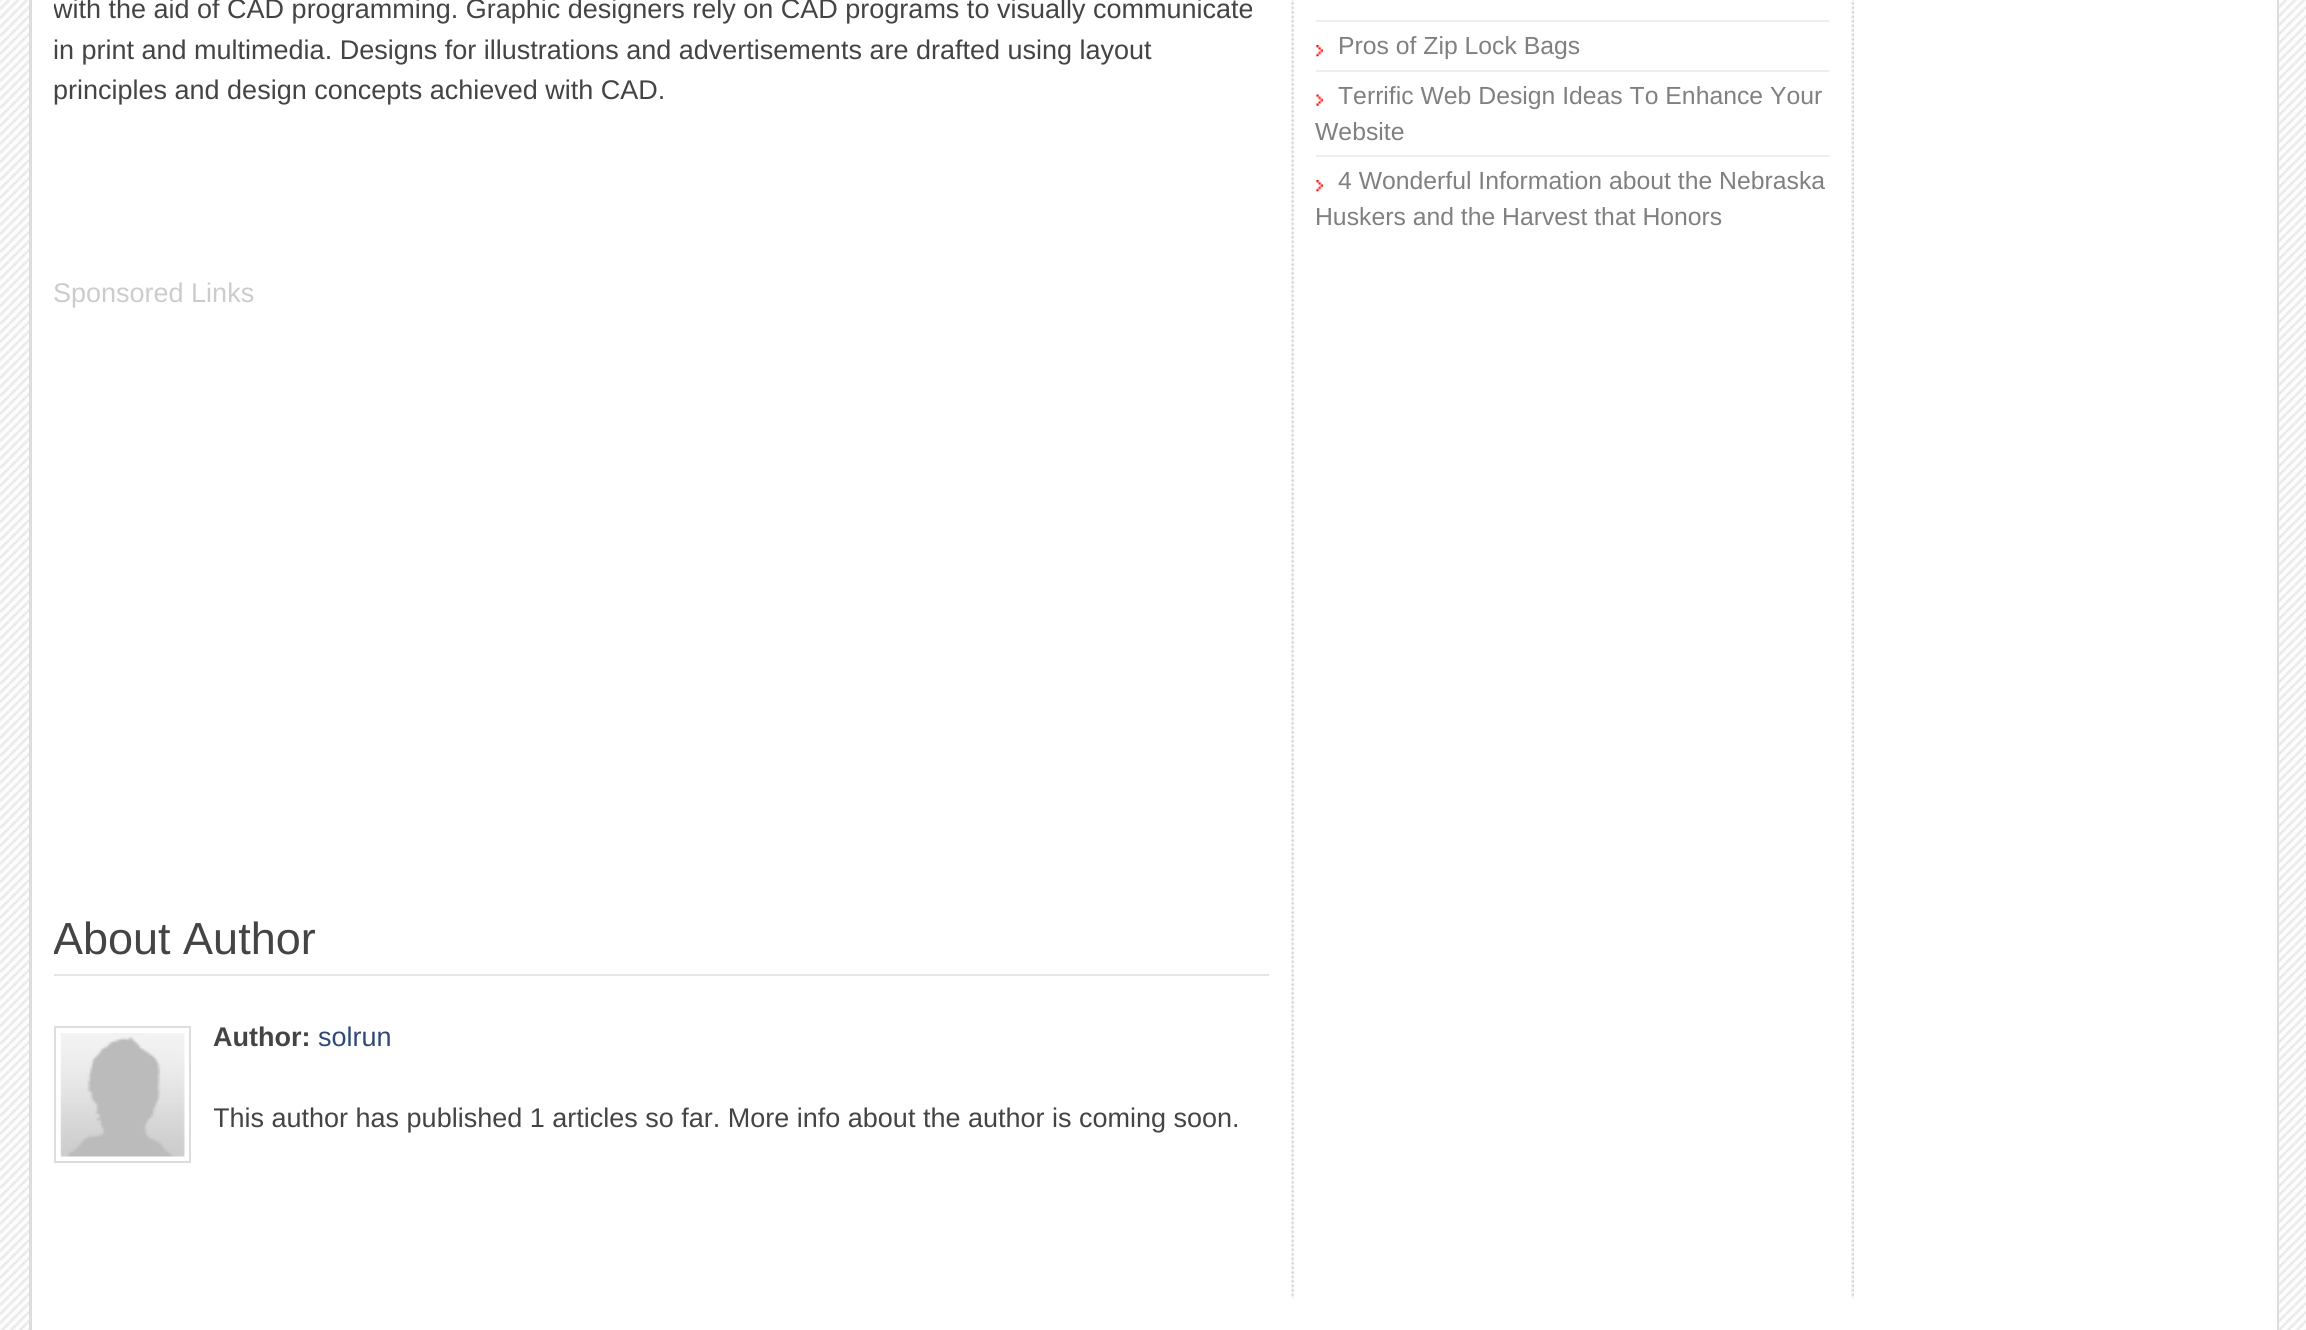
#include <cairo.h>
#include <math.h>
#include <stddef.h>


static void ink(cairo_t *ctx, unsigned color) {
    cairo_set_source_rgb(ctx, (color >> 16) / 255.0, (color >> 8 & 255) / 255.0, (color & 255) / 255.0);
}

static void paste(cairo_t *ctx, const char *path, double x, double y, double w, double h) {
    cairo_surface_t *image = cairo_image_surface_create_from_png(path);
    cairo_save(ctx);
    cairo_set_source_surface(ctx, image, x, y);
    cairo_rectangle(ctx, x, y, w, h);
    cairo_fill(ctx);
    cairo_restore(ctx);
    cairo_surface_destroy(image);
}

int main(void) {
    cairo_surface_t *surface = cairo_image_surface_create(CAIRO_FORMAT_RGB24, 2306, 1330);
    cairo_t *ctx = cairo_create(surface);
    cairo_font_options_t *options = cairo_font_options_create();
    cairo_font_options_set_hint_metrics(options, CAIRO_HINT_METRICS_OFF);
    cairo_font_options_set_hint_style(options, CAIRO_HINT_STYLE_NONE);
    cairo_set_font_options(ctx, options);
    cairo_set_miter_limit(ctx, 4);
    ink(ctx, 0xFFFFFF);
    cairo_paint(ctx);
    paste(ctx, "media/1.png", 0, 0, 2306, 1330);
    ink(ctx, 0xFFFFFF);
    cairo_rectangle(ctx, 32, 0, 2245, 1330);
    cairo_fill(ctx);
    ink(ctx, 0xDDDDDD);
    cairo_new_path(ctx);
    cairo_move_to(ctx, 2279, -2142);
    cairo_line_to(ctx, 2279, 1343);
    cairo_line_to(ctx, 2277, 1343);
    cairo_line_to(ctx, 2277, -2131);
    cairo_close_path(ctx);
    cairo_fill(ctx);
    cairo_new_path(ctx);
    cairo_move_to(ctx, 29, 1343);
    cairo_line_to(ctx, 29, -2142);
    cairo_line_to(ctx, 32, -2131);
    cairo_line_to(ctx, 32, 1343);
    cairo_close_path(ctx);
    cairo_fill(ctx);
    paste(ctx, "media/2.png", 1291, 0, 563, 1299);
    cairo_save(ctx);
    cairo_rectangle(ctx, 54, 0, 1215, 1298);
    cairo_clip(ctx);
    cairo_select_font_face(ctx, "Liberation Sans", CAIRO_FONT_SLANT_NORMAL, CAIRO_FONT_WEIGHT_NORMAL);
    cairo_set_font_size(ctx, 27);
    ink(ctx, 0x444444);
    cairo_move_to(ctx, 53, 18);
    cairo_show_text(ctx, "with the aid of CAD programming. Graphic designers rely on CAD programs to visually communicate");
    cairo_restore(ctx);
    cairo_select_font_face(ctx, "Liberation Sans", CAIRO_FONT_SLANT_NORMAL, CAIRO_FONT_WEIGHT_NORMAL);
    cairo_set_font_size(ctx, 27);
    ink(ctx, 0x444444);
    cairo_move_to(ctx, 53, 59);
    cairo_show_text(ctx, "in print and multimedia. Designs for illustrations and advertisements are drafted using layout");
    cairo_move_to(ctx, 53, 99);
    cairo_show_text(ctx, "principles and design concepts achieved with CAD.");
    ink(ctx, 0xCCCCCC);
    cairo_move_to(ctx, 53, 302);
    cairo_show_text(ctx, "Sponsored Links");
    ink(ctx, 0xE5E5E5);
    cairo_rectangle(ctx, 54, 974, 1215, 2);
    cairo_fill(ctx);
    cairo_save(ctx);
    cairo_rectangle(ctx, 54, 0, 1215, 1298);
    cairo_clip(ctx);
    cairo_set_font_size(ctx, 45);
    ink(ctx, 0x444444);
    cairo_move_to(ctx, 53, 954);
    cairo_show_text(ctx, "About Author");
    cairo_restore(ctx);
    cairo_rectangle(ctx, 55, 1027, 135, 135);
    ink(ctx, 0xDDDDDD);
    cairo_stroke(ctx);
    paste(ctx, "media/3.png", 60, 1033, 125, 124);
    cairo_select_font_face(ctx, "Liberation Sans", CAIRO_FONT_SLANT_NORMAL, CAIRO_FONT_WEIGHT_BOLD);
    ink(ctx, 0x444444);
    cairo_move_to(ctx, 213, 1046);
    cairo_show_text(ctx, "Author:");
    cairo_select_font_face(ctx, "Liberation Sans", CAIRO_FONT_SLANT_NORMAL, CAIRO_FONT_WEIGHT_NORMAL);
    ink(ctx, 0x2F487C);
    cairo_move_to(ctx, 318, 1046);
    cairo_show_text(ctx, "solrun");
    cairo_save(ctx);
    cairo_rectangle(ctx, 214, 1017, 1055, 122);
    cairo_clip(ctx);
    ink(ctx, 0x444444);
    cairo_move_to(ctx, 213, 1127);
    cairo_show_text(ctx, "This author has published 1 articles so far. More info about the author is coming soon.");
    cairo_restore(ctx);
    ink(ctx, 0xEEEEEE);
    cairo_rectangle(ctx, 1316, 20, 513, 2);
    cairo_fill(ctx);
    paste(ctx, "media/4.png", 1316, 45, 7, 12);
    cairo_set_font_size(ctx, 24.75);
    ink(ctx, 0x808080);
    cairo_move_to(ctx, 1338, 54);
    cairo_show_text(ctx, "Pros of Zip Lock Bags");
    ink(ctx, 0xEEEEEE);
    cairo_rectangle(ctx, 1316, 70, 513, 2);
    cairo_fill(ctx);
    paste(ctx, "media/5.png", 1316, 94, 7, 12);
    ink(ctx, 0x808080);
    cairo_move_to(ctx, 1338, 104);
    cairo_show_text(ctx, "Terrific Web Design Ideas To Enhance Your");
    cairo_move_to(ctx, 1315, 140);
    cairo_show_text(ctx, "Website");
    ink(ctx, 0xEEEEEE);
    cairo_rectangle(ctx, 1316, 155, 513, 2);
    cairo_fill(ctx);
    paste(ctx, "media/4.png", 1316, 180, 7, 12);
    ink(ctx, 0x808080);
    cairo_move_to(ctx, 1338, 189);
    cairo_show_text(ctx, "4 Wonderful Information about the Nebraska");
    cairo_move_to(ctx, 1315, 225);
    cairo_show_text(ctx, "Huskers and the Harvest that Honors");
    cairo_surface_write_to_png(surface, "image.png");
    cairo_font_options_destroy(options);
    cairo_destroy(ctx);
    cairo_surface_destroy(surface);
    return 0;
}
